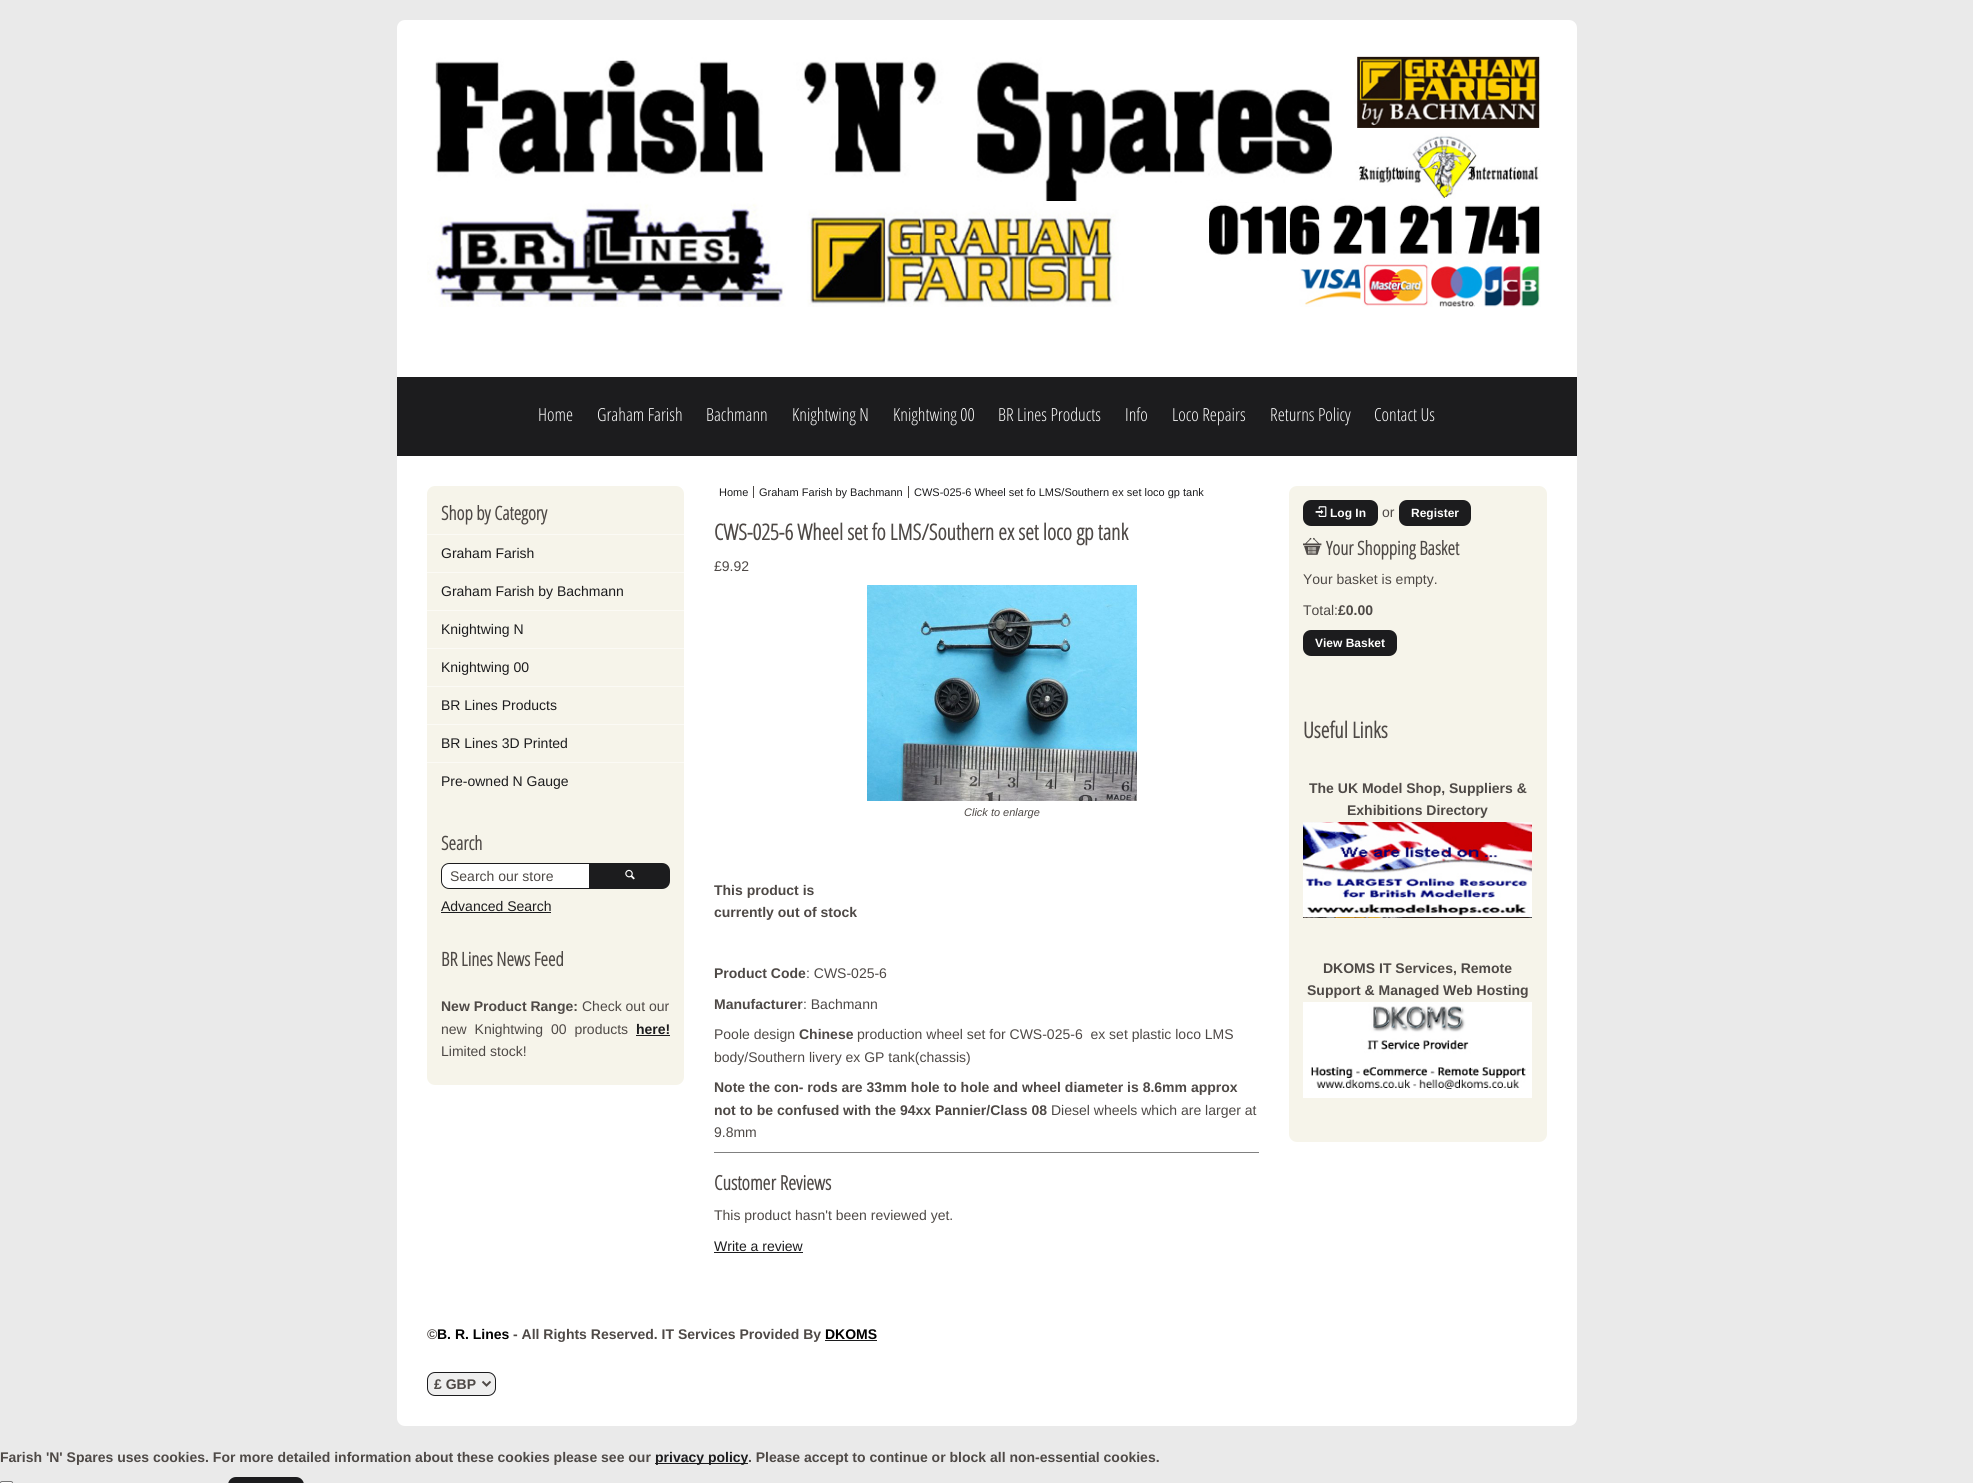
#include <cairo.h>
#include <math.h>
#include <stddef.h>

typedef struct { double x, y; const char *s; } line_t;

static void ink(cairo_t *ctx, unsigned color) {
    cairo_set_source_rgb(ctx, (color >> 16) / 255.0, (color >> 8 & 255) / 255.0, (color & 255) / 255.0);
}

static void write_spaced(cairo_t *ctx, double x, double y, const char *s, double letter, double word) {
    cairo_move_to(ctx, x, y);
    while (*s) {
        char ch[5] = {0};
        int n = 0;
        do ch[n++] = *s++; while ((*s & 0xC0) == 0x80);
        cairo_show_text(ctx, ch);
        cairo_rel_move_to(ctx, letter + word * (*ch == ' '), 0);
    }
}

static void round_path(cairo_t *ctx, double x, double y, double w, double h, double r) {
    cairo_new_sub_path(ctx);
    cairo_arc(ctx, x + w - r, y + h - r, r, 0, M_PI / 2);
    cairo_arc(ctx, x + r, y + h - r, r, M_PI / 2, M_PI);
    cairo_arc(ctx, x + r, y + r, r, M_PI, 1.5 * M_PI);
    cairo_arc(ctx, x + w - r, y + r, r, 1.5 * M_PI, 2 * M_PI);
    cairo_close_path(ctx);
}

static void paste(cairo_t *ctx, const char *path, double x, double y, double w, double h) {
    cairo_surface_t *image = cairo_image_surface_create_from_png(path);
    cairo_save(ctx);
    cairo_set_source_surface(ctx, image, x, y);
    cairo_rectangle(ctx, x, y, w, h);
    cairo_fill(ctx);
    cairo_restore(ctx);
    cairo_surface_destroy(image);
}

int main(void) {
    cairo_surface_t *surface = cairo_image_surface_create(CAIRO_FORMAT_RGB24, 1973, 1483);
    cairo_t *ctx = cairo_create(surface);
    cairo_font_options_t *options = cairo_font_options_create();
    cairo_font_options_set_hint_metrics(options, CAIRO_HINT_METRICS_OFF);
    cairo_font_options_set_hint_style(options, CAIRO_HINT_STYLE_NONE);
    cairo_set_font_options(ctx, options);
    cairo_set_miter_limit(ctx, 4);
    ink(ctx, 0xEAEAEA);
    cairo_paint(ctx);
    ink(ctx, 0xFFFFFF);
    round_path(ctx, 397, 20, 1180, 1406, 8);
    cairo_fill(ctx);
    paste(ctx, "media/1.png", 427, 56, 1114, 251);
    ink(ctx, 0x1C1C1E);
    cairo_rectangle(ctx, 397, 377, 1180, 79);
    cairo_fill(ctx);
    cairo_select_font_face(ctx, "Open Sans Condensed Light", CAIRO_FONT_SLANT_NORMAL, CAIRO_FONT_WEIGHT_NORMAL);
    cairo_set_font_size(ctx, 18);
    ink(ctx, 0xFFFFFF);
    {
        static const line_t items[] = {
            {538, 421, "Home"},
            {597, 421, "Graham Farish"},
            {706, 421, "Bachmann"},
            {792, 421, "Knightwing N"},
            {893, 421, "Knightwing 00"},
            {998, 421, "BR Lines Products"},
            {1125, 421, "Info"},
            {1172, 421, "Loco Repairs"},
            {1270, 421, "Returns Policy"},
            {1374, 421, "Contact Us"},
        };
        for (size_t i = 0; i < sizeof items / sizeof *items; i++) {
            cairo_move_to(ctx, items[i].x, items[i].y);
            cairo_show_text(ctx, items[i].s);
        }
    }
    ink(ctx, 0xF6F4EA);
    round_path(ctx, 427, 486, 257, 599, 8);
    cairo_fill(ctx);
    cairo_select_font_face(ctx, "Open Sans Condensed", CAIRO_FONT_SLANT_NORMAL, CAIRO_FONT_WEIGHT_BOLD);
    cairo_set_font_size(ctx, 19);
    ink(ctx, 0x4E4946);
    cairo_move_to(ctx, 441, 520);
    cairo_show_text(ctx, "Shop by Category");
    ink(ctx, 0xFBFAF5);
    cairo_rectangle(ctx, 427, 534, 257, 1);
    cairo_fill(ctx);
    cairo_select_font_face(ctx, "Liberation Sans", CAIRO_FONT_SLANT_NORMAL, CAIRO_FONT_WEIGHT_NORMAL);
    cairo_set_font_size(ctx, 14);
    ink(ctx, 0x1C1C1E);
    cairo_move_to(ctx, 441, 558);
    cairo_show_text(ctx, "Graham Farish");
    ink(ctx, 0xFBFAF5);
    cairo_rectangle(ctx, 427, 572, 257, 1);
    cairo_fill(ctx);
    ink(ctx, 0x1C1C1E);
    cairo_move_to(ctx, 441, 596);
    cairo_show_text(ctx, "Graham Farish by Bachmann");
    ink(ctx, 0xFBFAF5);
    cairo_rectangle(ctx, 427, 610, 257, 1);
    cairo_fill(ctx);
    ink(ctx, 0x1C1C1E);
    cairo_move_to(ctx, 441, 634);
    cairo_show_text(ctx, "Knightwing N");
    ink(ctx, 0xFBFAF5);
    cairo_rectangle(ctx, 427, 648, 257, 1);
    cairo_fill(ctx);
    ink(ctx, 0x1C1C1E);
    cairo_move_to(ctx, 441, 672);
    cairo_show_text(ctx, "Knightwing 00");
    ink(ctx, 0xFBFAF5);
    cairo_rectangle(ctx, 427, 686, 257, 1);
    cairo_fill(ctx);
    ink(ctx, 0x1C1C1E);
    cairo_move_to(ctx, 441, 710);
    cairo_show_text(ctx, "BR Lines Products");
    ink(ctx, 0xFBFAF5);
    cairo_rectangle(ctx, 427, 724, 257, 1);
    cairo_fill(ctx);
    ink(ctx, 0x1C1C1E);
    cairo_move_to(ctx, 441, 748);
    cairo_show_text(ctx, "BR Lines 3D Printed");
    ink(ctx, 0xFBFAF5);
    cairo_rectangle(ctx, 427, 762, 257, 1);
    cairo_fill(ctx);
    ink(ctx, 0x1C1C1E);
    cairo_move_to(ctx, 441, 786);
    cairo_show_text(ctx, "Pre-owned N Gauge");
    cairo_select_font_face(ctx, "Open Sans Condensed", CAIRO_FONT_SLANT_NORMAL, CAIRO_FONT_WEIGHT_BOLD);
    cairo_set_font_size(ctx, 19);
    ink(ctx, 0x4E4946);
    cairo_move_to(ctx, 441, 850);
    cairo_show_text(ctx, "Search");
    ink(ctx, 0xFFFFFF);
    cairo_new_path(ctx);
    cairo_move_to(ctx, 449, 863.5);
    cairo_line_to(ctx, 589.5, 863.5);
    cairo_line_to(ctx, 589.5, 888.5);
    cairo_line_to(ctx, 449, 888.5);
    cairo_curve_to(ctx, 445, 888.5, 441.5, 885, 441.5, 881);
    cairo_line_to(ctx, 441.5, 871);
    cairo_curve_to(ctx, 441.5, 867, 445, 863.5, 449, 863.5);
    cairo_close_path(ctx);
    cairo_fill_preserve(ctx);
    ink(ctx, 0x1C1C1E);
    cairo_set_line_width(ctx, 1);
    cairo_stroke(ctx);
    cairo_select_font_face(ctx, "Liberation Sans", CAIRO_FONT_SLANT_NORMAL, CAIRO_FONT_WEIGHT_NORMAL);
    cairo_set_font_size(ctx, 14);
    ink(ctx, 0x4E4946);
    cairo_move_to(ctx, 450, 881);
    cairo_show_text(ctx, "Search our store");
    ink(ctx, 0x1C1C1E);
    cairo_new_path(ctx);
    cairo_move_to(ctx, 590, 863);
    cairo_line_to(ctx, 662, 863);
    cairo_curve_to(ctx, 666.5, 863, 670, 866.5, 670, 871);
    cairo_line_to(ctx, 670, 881);
    cairo_curve_to(ctx, 670, 885.5, 666.5, 889, 662, 889);
    cairo_line_to(ctx, 590, 889);
    cairo_close_path(ctx);
    cairo_fill(ctx);
    paste(ctx, "media/2.png", 625, 869, 10, 11);
    cairo_move_to(ctx, 441, 911);
    cairo_show_text(ctx, "Advanced Search");
    cairo_rectangle(ctx, 441, 912, 110, 1);
    cairo_fill(ctx);
    cairo_select_font_face(ctx, "Open Sans Condensed", CAIRO_FONT_SLANT_NORMAL, CAIRO_FONT_WEIGHT_BOLD);
    cairo_set_font_size(ctx, 19);
    ink(ctx, 0x4E4946);
    cairo_move_to(ctx, 441, 966);
    cairo_show_text(ctx, "BR Lines News Feed");
    cairo_select_font_face(ctx, "Liberation Sans", CAIRO_FONT_SLANT_NORMAL, CAIRO_FONT_WEIGHT_BOLD);
    cairo_set_font_size(ctx, 14);
    cairo_move_to(ctx, 441, 1011);
    cairo_show_text(ctx, "New Product Range:");
    cairo_select_font_face(ctx, "Liberation Sans", CAIRO_FONT_SLANT_NORMAL, CAIRO_FONT_WEIGHT_NORMAL);
    cairo_move_to(ctx, 582, 1011);
    cairo_show_text(ctx, "Check out our");
    write_spaced(ctx, 441, 1034, "new Knightwing 00 products", 0, 4);
    cairo_select_font_face(ctx, "Liberation Sans", CAIRO_FONT_SLANT_NORMAL, CAIRO_FONT_WEIGHT_BOLD);
    ink(ctx, 0x1C1C1E);
    cairo_move_to(ctx, 636, 1034);
    cairo_show_text(ctx, "here!");
    cairo_rectangle(ctx, 636, 1035, 34, 1);
    cairo_fill(ctx);
    cairo_select_font_face(ctx, "Liberation Sans", CAIRO_FONT_SLANT_NORMAL, CAIRO_FONT_WEIGHT_NORMAL);
    ink(ctx, 0x4E4946);
    cairo_move_to(ctx, 441, 1056);
    cairo_show_text(ctx, "Limited stock!");
    cairo_set_font_size(ctx, 11);
    ink(ctx, 0x1C1C1E);
    cairo_move_to(ctx, 719, 496);
    cairo_show_text(ctx, "Home");
    cairo_move_to(ctx, 759, 496);
    cairo_show_text(ctx, "Graham Farish by Bachmann");
    ink(ctx, 0x4E4946);
    cairo_rectangle(ctx, 753, 486, 1, 12);
    cairo_fill(ctx);
    ink(ctx, 0x1C1C1E);
    cairo_move_to(ctx, 914, 496);
    cairo_show_text(ctx, "CWS-025-6 Wheel set fo LMS/Southern ex set loco gp tank");
    ink(ctx, 0x4E4946);
    cairo_rectangle(ctx, 908, 486, 1, 12);
    cairo_fill(ctx);
    cairo_select_font_face(ctx, "Open Sans Condensed", CAIRO_FONT_SLANT_NORMAL, CAIRO_FONT_WEIGHT_BOLD);
    cairo_set_font_size(ctx, 22);
    cairo_move_to(ctx, 714, 540);
    cairo_show_text(ctx, "CWS-025-6 Wheel set fo LMS/Southern ex set loco gp tank");
    cairo_select_font_face(ctx, "Liberation Sans", CAIRO_FONT_SLANT_NORMAL, CAIRO_FONT_WEIGHT_NORMAL);
    cairo_set_font_size(ctx, 14);
    cairo_move_to(ctx, 714, 571);
    cairo_show_text(ctx, "£9.92");
    paste(ctx, "media/3.png", 867, 585, 270, 216);
    cairo_select_font_face(ctx, "Liberation Sans", CAIRO_FONT_SLANT_ITALIC, CAIRO_FONT_WEIGHT_NORMAL);
    cairo_set_font_size(ctx, 11);
    cairo_move_to(ctx, 964, 816);
    cairo_show_text(ctx, "Click to enlarge");
    cairo_select_font_face(ctx, "Liberation Sans", CAIRO_FONT_SLANT_NORMAL, CAIRO_FONT_WEIGHT_BOLD);
    cairo_set_font_size(ctx, 14);
    {
        static const line_t items[] = {
            {714, 895, "This product is"},
            {714, 917, "currently out of stock"},
            {714, 978, "Product Code"},
        };
        for (size_t i = 0; i < sizeof items / sizeof *items; i++) {
            cairo_move_to(ctx, items[i].x, items[i].y);
            cairo_show_text(ctx, items[i].s);
        }
    }
    cairo_select_font_face(ctx, "Liberation Sans", CAIRO_FONT_SLANT_NORMAL, CAIRO_FONT_WEIGHT_NORMAL);
    cairo_move_to(ctx, 806, 978);
    cairo_show_text(ctx, ": CWS-025-6");
    cairo_select_font_face(ctx, "Liberation Sans", CAIRO_FONT_SLANT_NORMAL, CAIRO_FONT_WEIGHT_BOLD);
    cairo_move_to(ctx, 714, 1009);
    cairo_show_text(ctx, "Manufacturer");
    cairo_select_font_face(ctx, "Liberation Sans", CAIRO_FONT_SLANT_NORMAL, CAIRO_FONT_WEIGHT_NORMAL);
    cairo_move_to(ctx, 803, 1009);
    cairo_show_text(ctx, ": Bachmann");
    cairo_move_to(ctx, 714, 1039);
    cairo_show_text(ctx, "Poole design");
    cairo_select_font_face(ctx, "Liberation Sans", CAIRO_FONT_SLANT_NORMAL, CAIRO_FONT_WEIGHT_BOLD);
    cairo_move_to(ctx, 799, 1039);
    cairo_show_text(ctx, "Chinese");
    cairo_select_font_face(ctx, "Liberation Sans", CAIRO_FONT_SLANT_NORMAL, CAIRO_FONT_WEIGHT_NORMAL);
    cairo_move_to(ctx, 857, 1039);
    cairo_show_text(ctx, "production wheel set for CWS-025-6  ex set plastic loco LMS");
    cairo_move_to(ctx, 714, 1062);
    cairo_show_text(ctx, "body/Southern livery ex GP tank(chassis)");
    cairo_select_font_face(ctx, "Liberation Sans", CAIRO_FONT_SLANT_NORMAL, CAIRO_FONT_WEIGHT_BOLD);
    cairo_move_to(ctx, 714, 1092);
    cairo_show_text(ctx, "Note the con- rods are 33mm hole to hole and wheel diameter is 8.6mm approx");
    cairo_move_to(ctx, 714, 1115);
    cairo_show_text(ctx, "not to be confused with the 94xx Pannier/Class 08");
    cairo_select_font_face(ctx, "Liberation Sans", CAIRO_FONT_SLANT_NORMAL, CAIRO_FONT_WEIGHT_NORMAL);
    cairo_move_to(ctx, 1051, 1115);
    cairo_show_text(ctx, "Diesel wheels which are larger at");
    cairo_move_to(ctx, 714, 1137);
    cairo_show_text(ctx, "9.8mm");
    ink(ctx, 0x808080);
    cairo_rectangle(ctx, 714, 1152, 545, 1);
    cairo_fill(ctx);
    cairo_select_font_face(ctx, "Open Sans Condensed", CAIRO_FONT_SLANT_NORMAL, CAIRO_FONT_WEIGHT_BOLD);
    cairo_set_font_size(ctx, 20);
    ink(ctx, 0x4E4946);
    cairo_move_to(ctx, 714, 1190);
    cairo_show_text(ctx, "Customer Reviews");
    cairo_select_font_face(ctx, "Liberation Sans", CAIRO_FONT_SLANT_NORMAL, CAIRO_FONT_WEIGHT_NORMAL);
    cairo_set_font_size(ctx, 14);
    cairo_move_to(ctx, 714, 1220);
    cairo_show_text(ctx, "This product hasn't been reviewed yet.");
    ink(ctx, 0x1C1C1E);
    cairo_move_to(ctx, 714, 1251);
    cairo_show_text(ctx, "Write a review");
    cairo_rectangle(ctx, 714, 1252, 89, 1);
    cairo_fill(ctx);
    ink(ctx, 0xF6F4EA);
    round_path(ctx, 1289, 486, 258, 656, 8);
    cairo_fill(ctx);
    ink(ctx, 0x1C1C1E);
    round_path(ctx, 1303, 500, 75, 26, 8);
    cairo_fill(ctx);
    paste(ctx, "media/4.png", 1315, 506, 12, 11);
    cairo_select_font_face(ctx, "Liberation Sans", CAIRO_FONT_SLANT_NORMAL, CAIRO_FONT_WEIGHT_BOLD);
    cairo_set_font_size(ctx, 12);
    ink(ctx, 0xFFFFFF);
    cairo_move_to(ctx, 1330, 517);
    cairo_show_text(ctx, "Log In");
    cairo_select_font_face(ctx, "Liberation Sans", CAIRO_FONT_SLANT_NORMAL, CAIRO_FONT_WEIGHT_NORMAL);
    cairo_set_font_size(ctx, 14);
    ink(ctx, 0x4E4946);
    cairo_move_to(ctx, 1382, 517);
    cairo_show_text(ctx, "or");
    ink(ctx, 0x1C1C1E);
    round_path(ctx, 1399, 500, 72, 26, 8);
    cairo_fill(ctx);
    cairo_select_font_face(ctx, "Liberation Sans", CAIRO_FONT_SLANT_NORMAL, CAIRO_FONT_WEIGHT_BOLD);
    cairo_set_font_size(ctx, 12);
    ink(ctx, 0xFFFFFF);
    cairo_move_to(ctx, 1411, 517);
    cairo_show_text(ctx, "Register");
    paste(ctx, "media/5.png", 1303, 537, 19, 18);
    cairo_select_font_face(ctx, "Open Sans Condensed", CAIRO_FONT_SLANT_NORMAL, CAIRO_FONT_WEIGHT_BOLD);
    cairo_set_font_size(ctx, 19);
    ink(ctx, 0x4E4946);
    cairo_move_to(ctx, 1326, 555);
    cairo_show_text(ctx, "Your Shopping Basket");
    cairo_select_font_face(ctx, "Liberation Sans", CAIRO_FONT_SLANT_NORMAL, CAIRO_FONT_WEIGHT_NORMAL);
    cairo_set_font_size(ctx, 14);
    cairo_move_to(ctx, 1303, 584);
    cairo_show_text(ctx, "Your basket is empty.");
    cairo_move_to(ctx, 1303, 615);
    cairo_show_text(ctx, "Total:");
    cairo_select_font_face(ctx, "Liberation Sans", CAIRO_FONT_SLANT_NORMAL, CAIRO_FONT_WEIGHT_BOLD);
    cairo_move_to(ctx, 1338, 615);
    cairo_show_text(ctx, "£0.00");
    ink(ctx, 0x1C1C1E);
    round_path(ctx, 1303, 630, 94, 26, 8);
    cairo_fill(ctx);
    cairo_set_font_size(ctx, 12);
    ink(ctx, 0xFFFFFF);
    cairo_move_to(ctx, 1315, 647);
    cairo_show_text(ctx, "View Basket");
    cairo_select_font_face(ctx, "Open Sans Condensed", CAIRO_FONT_SLANT_NORMAL, CAIRO_FONT_WEIGHT_BOLD);
    cairo_set_font_size(ctx, 22);
    ink(ctx, 0x4E4946);
    cairo_move_to(ctx, 1303, 738);
    cairo_show_text(ctx, "Useful Links");
    cairo_select_font_face(ctx, "Liberation Sans", CAIRO_FONT_SLANT_NORMAL, CAIRO_FONT_WEIGHT_BOLD);
    cairo_set_font_size(ctx, 14);
    cairo_move_to(ctx, 1309, 793);
    cairo_show_text(ctx, "The UK Model Shop, Suppliers &");
    cairo_move_to(ctx, 1347, 815);
    cairo_show_text(ctx, "Exhibitions Directory");
    paste(ctx, "media/6.png", 1303, 822, 229, 96);
    cairo_move_to(ctx, 1323, 973);
    cairo_show_text(ctx, "DKOMS IT Services, Remote");
    cairo_move_to(ctx, 1307, 995);
    cairo_show_text(ctx, "Support & Managed Web Hosting");
    paste(ctx, "media/7.png", 1303, 1002, 229, 96);
    cairo_move_to(ctx, 427, 1339);
    cairo_show_text(ctx, "©");
    ink(ctx, 0x000000);
    cairo_move_to(ctx, 437, 1339);
    cairo_show_text(ctx, "B. R. Lines");
    ink(ctx, 0x4E4946);
    cairo_move_to(ctx, 513, 1339);
    cairo_show_text(ctx, "- All Rights Reserved. IT Services Provided By");
    ink(ctx, 0x000000);
    cairo_move_to(ctx, 825, 1339);
    cairo_show_text(ctx, "DKOMS");
    ink(ctx, 0x1C1C1E);
    cairo_rectangle(ctx, 825, 1340, 52, 1);
    cairo_fill(ctx);
    ink(ctx, 0xEFEFEF);
    round_path(ctx, 427.5, 1372.5, 68, 23, 7.5);
    cairo_fill_preserve(ctx);
    ink(ctx, 0x1C1C1E);
    cairo_stroke(ctx);
    cairo_new_path(ctx);
    cairo_move_to(ctx, 482.5, 1381.5);
    cairo_line_to(ctx, 486.5, 1385.5);
    cairo_line_to(ctx, 490.5, 1381.5);
    ink(ctx, 0x4E4946);
    cairo_set_line_width(ctx, 2);
    cairo_stroke(ctx);
    cairo_save(ctx);
    cairo_rectangle(ctx, 434, 1375, 43, 18);
    cairo_clip(ctx);
    cairo_move_to(ctx, 434, 1389);
    cairo_show_text(ctx, "£ GBP");
    cairo_restore(ctx);
    cairo_move_to(ctx, 0, 1462);
    cairo_show_text(ctx, "Farish 'N' Spares uses cookies. For more detailed information about these cookies please see our");
    ink(ctx, 0x1C1C1E);
    cairo_rectangle(ctx, 655, 1463, 93, 1);
    cairo_fill(ctx);
    cairo_move_to(ctx, 655, 1462);
    cairo_show_text(ctx, "privacy policy");
    ink(ctx, 0x4E4946);
    cairo_move_to(ctx, 748, 1462);
    cairo_show_text(ctx, ". Please accept to continue or block all non-essential cookies.");
    ink(ctx, 0xFFFFFF);
    round_path(ctx, 0.5, 1481.5, 12, 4, 1.5);
    cairo_fill_preserve(ctx);
    ink(ctx, 0x767676);
    cairo_set_line_width(ctx, 1);
    cairo_stroke(ctx);
    ink(ctx, 0x1C1C1E);
    round_path(ctx, 228, 1477, 76, 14, 8);
    cairo_fill(ctx);
    cairo_surface_write_to_png(surface, "image.png");
    cairo_font_options_destroy(options);
    cairo_destroy(ctx);
    cairo_surface_destroy(surface);
    return 0;
}
